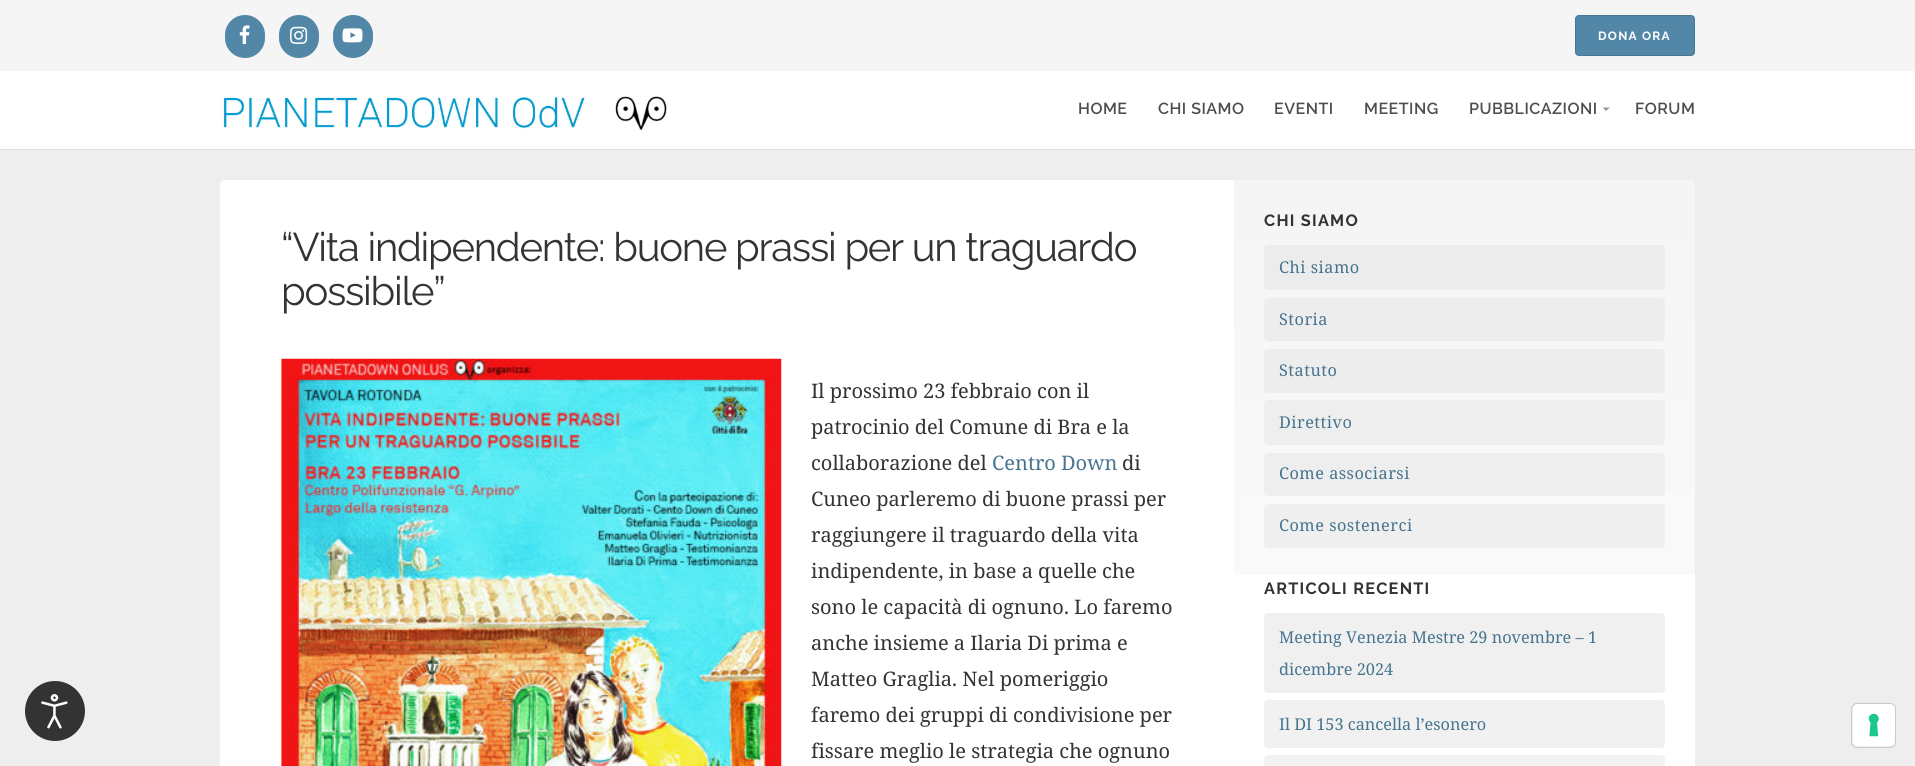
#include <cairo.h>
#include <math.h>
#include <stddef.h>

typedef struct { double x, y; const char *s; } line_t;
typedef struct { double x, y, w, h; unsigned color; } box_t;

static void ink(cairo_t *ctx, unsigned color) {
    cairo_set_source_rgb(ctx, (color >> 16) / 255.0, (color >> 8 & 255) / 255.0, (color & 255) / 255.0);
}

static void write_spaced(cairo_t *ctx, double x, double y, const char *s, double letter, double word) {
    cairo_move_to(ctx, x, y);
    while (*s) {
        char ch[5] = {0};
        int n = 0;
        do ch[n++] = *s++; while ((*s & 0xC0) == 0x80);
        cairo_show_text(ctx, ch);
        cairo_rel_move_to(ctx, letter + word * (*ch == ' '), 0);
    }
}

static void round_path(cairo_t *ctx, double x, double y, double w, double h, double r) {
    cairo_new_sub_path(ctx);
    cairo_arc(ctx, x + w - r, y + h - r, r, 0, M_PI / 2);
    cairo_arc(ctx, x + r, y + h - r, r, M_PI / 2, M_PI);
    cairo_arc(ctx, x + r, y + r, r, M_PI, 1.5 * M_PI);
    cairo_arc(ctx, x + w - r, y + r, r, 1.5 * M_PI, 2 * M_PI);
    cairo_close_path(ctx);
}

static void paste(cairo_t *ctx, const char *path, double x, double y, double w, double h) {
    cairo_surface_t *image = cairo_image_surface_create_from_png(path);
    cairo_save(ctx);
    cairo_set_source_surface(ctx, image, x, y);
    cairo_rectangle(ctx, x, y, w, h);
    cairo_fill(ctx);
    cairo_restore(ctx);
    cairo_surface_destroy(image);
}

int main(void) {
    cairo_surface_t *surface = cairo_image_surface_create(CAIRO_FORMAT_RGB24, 1915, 766);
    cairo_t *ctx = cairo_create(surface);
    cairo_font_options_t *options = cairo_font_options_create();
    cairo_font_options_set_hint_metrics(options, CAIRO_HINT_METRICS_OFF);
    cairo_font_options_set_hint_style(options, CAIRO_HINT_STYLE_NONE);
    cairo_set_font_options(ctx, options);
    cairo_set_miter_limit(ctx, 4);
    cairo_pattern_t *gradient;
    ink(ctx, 0xEEEEEE);
    cairo_paint(ctx);
    ink(ctx, 0x333333);
    cairo_arc(ctx, 55, 711, 30, 0, 2 * M_PI);
    cairo_fill(ctx);
    paste(ctx, "media/1.png", 41, 694, 27, 35);
    {
        static const box_t items[] = {
            {0, 71, 1915, 78, 0xFFFFFF},
            {0, 149, 1915, 1, 0xE0E0E0},
            {0, 0, 1915, 71, 0xF5F5F5},
        };
        for (size_t i = 0; i < sizeof items / sizeof *items; i++) {
            ink(ctx, items[i].color);
            cairo_rectangle(ctx, items[i].x, items[i].y, items[i].w, items[i].h);
            cairo_fill(ctx);
        }
    }
    ink(ctx, 0x5287A7);
    round_path(ctx, 225, 15, 40, 43, 20);
    cairo_fill(ctx);
    paste(ctx, "media/2.png", 239, 25, 11, 19);
    round_path(ctx, 279, 15, 40, 43, 20);
    cairo_fill(ctx);
    paste(ctx, "media/3.png", 290, 26, 18, 18);
    round_path(ctx, 333, 15, 40, 43, 20);
    cairo_fill(ctx);
    paste(ctx, "media/4.png", 342, 28, 21, 15);
    round_path(ctx, 1575, 15, 120, 41, 4);
    cairo_fill(ctx);
    round_path(ctx, 1575.5, 15.5, 119, 40, 3.5);
    cairo_set_source_rgba(ctx, 0, 0, 0, 0.12);
    cairo_set_line_width(ctx, 1);
    cairo_stroke(ctx);
    cairo_select_font_face(ctx, "Raleway", CAIRO_FONT_SLANT_NORMAL, CAIRO_FONT_WEIGHT_BOLD);
    cairo_set_font_size(ctx, 12);
    ink(ctx, 0xFFFFFF);
    write_spaced(ctx, 1598, 40, "DONA ORA", 1.25, 0);
    paste(ctx, "media/5.png", 222, 96, 445, 35);
    cairo_select_font_face(ctx, "Raleway SemiBold", CAIRO_FONT_SLANT_NORMAL, CAIRO_FONT_WEIGHT_NORMAL);
    cairo_set_font_size(ctx, 16);
    ink(ctx, 0x4D4D4D);
    {
        static const line_t items[] = {
            {1078, 114, "HOME"},
            {1158, 114, "CHI SIAMO"},
            {1274, 114, "EVENTI"},
            {1364, 114, "MEETING"},
            {1469, 114, "PUBBLICAZIONI"},
        };
        for (size_t i = 0; i < sizeof items / sizeof *items; i++) {
            write_spaced(ctx, items[i].x, items[i].y, items[i].s, 0.5, 0);
        }
    }
    ink(ctx, 0x999999);
    cairo_new_path(ctx);
    cairo_move_to(ctx, 1602.5, 107.5);
    cairo_line_to(ctx, 1610, 107.5);
    cairo_line_to(ctx, 1606, 111);
    cairo_close_path(ctx);
    cairo_fill(ctx);
    ink(ctx, 0x4D4D4D);
    write_spaced(ctx, 1635, 114, "FORUM", 0.5, 0);
    ink(ctx, 0xFFFFFF);
    round_path(ctx, 220, 180, 1475, 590, 4);
    cairo_fill(ctx);
    cairo_select_font_face(ctx, "Raleway", CAIRO_FONT_SLANT_NORMAL, CAIRO_FONT_WEIGHT_NORMAL);
    cairo_set_font_size(ctx, 40);
    ink(ctx, 0x333333);
    write_spaced(ctx, 281, 261, "“Vita indipendente: buone prassi per un traguardo", -1.25, 0);
    write_spaced(ctx, 281, 305, "possibile”", -1.25, 0);
    paste(ctx, "media/6.png", 281, 358, 501, 408);
    cairo_select_font_face(ctx, "Noto Serif", CAIRO_FONT_SLANT_NORMAL, CAIRO_FONT_WEIGHT_NORMAL);
    cairo_set_font_size(ctx, 20);
    {
        static const line_t items[] = {
            {811, 398, "Il prossimo 23 febbraio con il"},
            {811, 434, "patrocinio del Comune di Bra e la"},
            {811, 470, "collaborazione del"},
        };
        for (size_t i = 0; i < sizeof items / sizeof *items; i++) {
            cairo_move_to(ctx, items[i].x, items[i].y);
            cairo_show_text(ctx, items[i].s);
        }
    }
    ink(ctx, 0x46738F);
    cairo_move_to(ctx, 992, 470);
    cairo_show_text(ctx, "Centro Down");
    ink(ctx, 0x333333);
    {
        static const line_t items[] = {
            {1122, 470, "di"},
            {811, 506, "Cuneo parleremo di buone prassi per"},
            {811, 542, "raggiungere il traguardo della vita"},
            {811, 578, "indipendente, in base a quelle che"},
            {811, 614, "sono le capacità di ognuno. Lo faremo"},
            {811, 650, "anche insieme a Ilaria Di prima e"},
            {811, 686, "Matteo Graglia. Nel pomeriggio"},
            {811, 722, "faremo dei gruppi di condivisione per"},
            {811, 758, "fissare meglio le strategia che ognuno"},
        };
        for (size_t i = 0; i < sizeof items / sizeof *items; i++) {
            cairo_move_to(ctx, items[i].x, items[i].y);
            cairo_show_text(ctx, items[i].s);
        }
    }
    gradient = cairo_pattern_create_linear(1464, 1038, 1464, 180);
    cairo_pattern_add_color_stop_rgba(gradient, 0, 0, 0, 0, 0);
    cairo_pattern_add_color_stop_rgba(gradient, 1, 0, 0, 0, 0.04);
    cairo_set_source(ctx, gradient);
    cairo_pattern_destroy(gradient);
    cairo_rectangle(ctx, 1234, 180, 461, 395);
    cairo_fill(ctx);
    cairo_select_font_face(ctx, "Raleway", CAIRO_FONT_SLANT_NORMAL, CAIRO_FONT_WEIGHT_BOLD);
    cairo_set_font_size(ctx, 16.25);
    ink(ctx, 0x333333);
    write_spaced(ctx, 1264, 226, "CHI SIAMO", 1.25, 0);
    ink(ctx, 0xECECEC);
    round_path(ctx, 1264, 245, 401, 45, 4);
    cairo_fill(ctx);
    cairo_select_font_face(ctx, "Noto Serif", CAIRO_FONT_SLANT_NORMAL, CAIRO_FONT_WEIGHT_NORMAL);
    ink(ctx, 0x46738F);
    write_spaced(ctx, 1279, 273, "Chi siamo", 0.5, 0);
    ink(ctx, 0xEDEDED);
    round_path(ctx, 1264, 298, 401, 43, 4);
    cairo_fill(ctx);
    ink(ctx, 0x46738F);
    write_spaced(ctx, 1279, 325, "Storia", 0.5, 0);
    ink(ctx, 0xEDEDED);
    round_path(ctx, 1264, 349, 401, 44, 4);
    cairo_fill(ctx);
    ink(ctx, 0x46738F);
    write_spaced(ctx, 1279, 376, "Statuto", 0.5, 0);
    ink(ctx, 0xEEEEEE);
    round_path(ctx, 1264, 400, 401, 45, 4);
    cairo_fill(ctx);
    ink(ctx, 0x46738F);
    write_spaced(ctx, 1279, 428, "Direttivo", 0.5, 0);
    ink(ctx, 0xEEEEEE);
    round_path(ctx, 1264, 453, 401, 43, 4);
    cairo_fill(ctx);
    ink(ctx, 0x46738F);
    write_spaced(ctx, 1279, 479, "Come associarsi", 0.5, 0);
    ink(ctx, 0xEFEFEF);
    round_path(ctx, 1264, 504, 401, 44, 4);
    cairo_fill(ctx);
    ink(ctx, 0x46738F);
    write_spaced(ctx, 1279, 531, "Come sostenerci", 0.5, 0);
    cairo_select_font_face(ctx, "Raleway", CAIRO_FONT_SLANT_NORMAL, CAIRO_FONT_WEIGHT_BOLD);
    ink(ctx, 0x333333);
    write_spaced(ctx, 1264, 594, "ARTICOLI RECENTI", 1.25, 0);
    ink(ctx, 0xF0F0F0);
    round_path(ctx, 1264, 613, 401, 80, 4);
    cairo_fill(ctx);
    cairo_select_font_face(ctx, "Noto Serif", CAIRO_FONT_SLANT_NORMAL, CAIRO_FONT_WEIGHT_NORMAL);
    ink(ctx, 0x46738F);
    cairo_move_to(ctx, 1279, 643);
    cairo_show_text(ctx, "Meeting Venezia Mestre 29 novembre – 1");
    cairo_move_to(ctx, 1279, 675);
    cairo_show_text(ctx, "dicembre 2024");
    ink(ctx, 0xF1F1F1);
    round_path(ctx, 1264, 700, 401, 48, 4);
    cairo_fill(ctx);
    ink(ctx, 0x46738F);
    cairo_move_to(ctx, 1279, 730);
    cairo_show_text(ctx, "Il DI 153 cancella l’esonero");
    ink(ctx, 0xF2F2F2);
    round_path(ctx, 1264, 755, 401, 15, 4);
    cairo_fill(ctx);
    round_path(ctx, 1851.5, 703.5, 44, 44, 5.5);
    ink(ctx, 0xCACACA);
    cairo_stroke(ctx);
    ink(ctx, 0xFFFFFF);
    round_path(ctx, 1853, 704, 42, 42, 5);
    cairo_fill(ctx);
    paste(ctx, "media/7.png", 1868, 713, 11, 24);
    cairo_surface_write_to_png(surface, "image.png");
    cairo_font_options_destroy(options);
    cairo_destroy(ctx);
    cairo_surface_destroy(surface);
    return 0;
}
